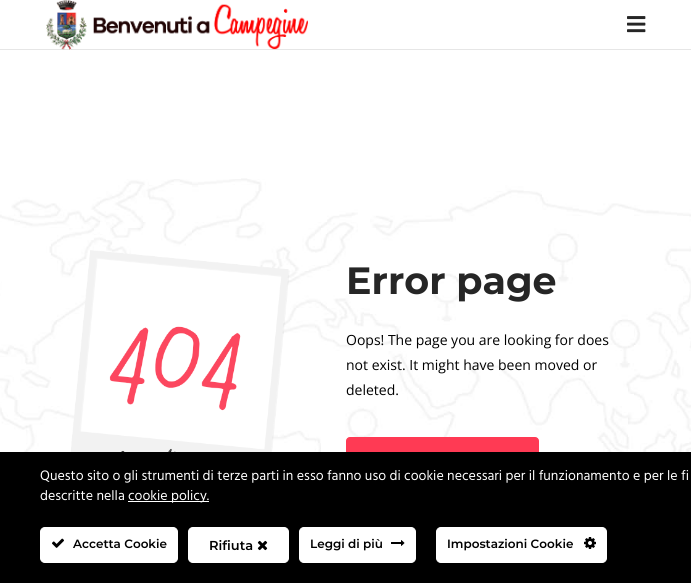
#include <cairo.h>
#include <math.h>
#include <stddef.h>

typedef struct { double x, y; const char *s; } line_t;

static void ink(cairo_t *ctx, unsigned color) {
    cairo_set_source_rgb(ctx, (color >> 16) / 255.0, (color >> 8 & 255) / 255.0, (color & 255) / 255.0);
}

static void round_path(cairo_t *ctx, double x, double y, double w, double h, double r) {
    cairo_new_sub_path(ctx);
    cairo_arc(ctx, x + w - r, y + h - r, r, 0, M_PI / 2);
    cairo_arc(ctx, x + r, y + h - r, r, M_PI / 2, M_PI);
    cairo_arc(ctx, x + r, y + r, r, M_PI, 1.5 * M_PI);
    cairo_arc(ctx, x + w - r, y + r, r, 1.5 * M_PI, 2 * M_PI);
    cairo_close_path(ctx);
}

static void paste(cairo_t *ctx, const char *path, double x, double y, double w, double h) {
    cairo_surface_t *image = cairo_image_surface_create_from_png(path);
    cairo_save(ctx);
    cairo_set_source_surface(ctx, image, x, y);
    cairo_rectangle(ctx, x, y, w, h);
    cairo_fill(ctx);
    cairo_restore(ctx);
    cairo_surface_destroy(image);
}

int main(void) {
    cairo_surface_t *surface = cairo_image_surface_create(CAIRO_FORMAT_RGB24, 691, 583);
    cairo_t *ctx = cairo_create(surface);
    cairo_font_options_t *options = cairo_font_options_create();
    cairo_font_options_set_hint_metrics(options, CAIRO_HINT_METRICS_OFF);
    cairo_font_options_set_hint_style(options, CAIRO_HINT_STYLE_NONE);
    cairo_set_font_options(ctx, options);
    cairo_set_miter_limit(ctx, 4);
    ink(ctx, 0xFFFFFF);
    cairo_paint(ctx);
    ink(ctx, 0xE6E6E6);
    cairo_rectangle(ctx, 0, 49, 691, 1);
    cairo_fill(ctx);
    paste(ctx, "media/1.png", 46, 0, 262, 50);
    paste(ctx, "media/2.png", 627, 16, 19, 17);
    paste(ctx, "media/3.png", 0, 178, 691, 274);
    paste(ctx, "media/4.png", 70, 250, 220, 202);
    cairo_select_font_face(ctx, "Montserrat", CAIRO_FONT_SLANT_NORMAL, CAIRO_FONT_WEIGHT_BOLD);
    cairo_set_font_size(ctx, 38);
    ink(ctx, 0x262626);
    cairo_move_to(ctx, 346, 294);
    cairo_show_text(ctx, "Error page");
    cairo_select_font_face(ctx, "Open Sans", CAIRO_FONT_SLANT_NORMAL, CAIRO_FONT_WEIGHT_NORMAL);
    cairo_set_font_size(ctx, 14);
    ink(ctx, 0x000000);
    {
        static const line_t items[] = {
            {346, 345, "Oops! The page you are looking for does"},
            {346, 370, "not exist. It might have been moved or"},
            {346, 395, "deleted."},
        };
        for (size_t i = 0; i < sizeof items / sizeof *items; i++) {
            cairo_move_to(ctx, items[i].x, items[i].y);
            cairo_show_text(ctx, items[i].s);
        }
    }
    ink(ctx, 0xFF3A54);
    round_path(ctx, 346.5, 437.5, 192, 47, 3.5);
    cairo_fill_preserve(ctx);
    cairo_set_line_width(ctx, 1);
    cairo_stroke(ctx);
    ink(ctx, 0x000000);
    cairo_rectangle(ctx, 0, 452, 691, 131);
    cairo_fill(ctx);
    cairo_select_font_face(ctx, "Hind", CAIRO_FONT_SLANT_NORMAL, CAIRO_FONT_WEIGHT_NORMAL);
    ink(ctx, 0xFFFFFF);
    cairo_move_to(ctx, 40, 480);
    cairo_show_text(ctx, "Questo sito o gli strumenti di terze parti in esso fanno uso di cookie necessari per il funzionamento e per le fi");
    cairo_move_to(ctx, 40, 500);
    cairo_show_text(ctx, "descritte nella");
    cairo_rectangle(ctx, 128, 501, 81, 1);
    cairo_fill(ctx);
    cairo_move_to(ctx, 128, 500);
    cairo_show_text(ctx, "cookie policy.");
    round_path(ctx, 40.5, 527.5, 137, 35, 4.5);
    cairo_fill_preserve(ctx);
    cairo_stroke(ctx);
    paste(ctx, "media/5.png", 52, 538, 12, 10);
    cairo_select_font_face(ctx, "Montserrat SemiBold", CAIRO_FONT_SLANT_NORMAL, CAIRO_FONT_WEIGHT_NORMAL);
    cairo_set_font_size(ctx, 12);
    ink(ctx, 0x000000);
    cairo_move_to(ctx, 73, 548);
    cairo_show_text(ctx, "Accetta Cookie");
    ink(ctx, 0xFFFFFF);
    round_path(ctx, 188.5, 527.5, 100, 35, 4.5);
    cairo_fill_preserve(ctx);
    cairo_stroke(ctx);
    cairo_set_font_size(ctx, 13);
    ink(ctx, 0x000000);
    cairo_move_to(ctx, 209, 550);
    cairo_show_text(ctx, "Rifiuta");
    paste(ctx, "media/6.png", 257, 540, 11, 11);
    ink(ctx, 0xFFFFFF);
    round_path(ctx, 299.5, 527.5, 116, 35, 4.5);
    cairo_fill_preserve(ctx);
    cairo_stroke(ctx);
    cairo_set_font_size(ctx, 12);
    ink(ctx, 0x000000);
    cairo_move_to(ctx, 310, 548);
    cairo_show_text(ctx, "Leggi di più");
    paste(ctx, "media/7.png", 391, 540, 14, 6);
    ink(ctx, 0xFFFFFF);
    round_path(ctx, 436.5, 527.5, 170, 35, 4.5);
    cairo_fill_preserve(ctx);
    cairo_stroke(ctx);
    ink(ctx, 0x000000);
    cairo_move_to(ctx, 447, 548);
    cairo_show_text(ctx, "Impostazioni Cookie");
    paste(ctx, "media/8.png", 584, 537, 12, 12);
    cairo_surface_write_to_png(surface, "image.png");
    cairo_font_options_destroy(options);
    cairo_destroy(ctx);
    cairo_surface_destroy(surface);
    return 0;
}
